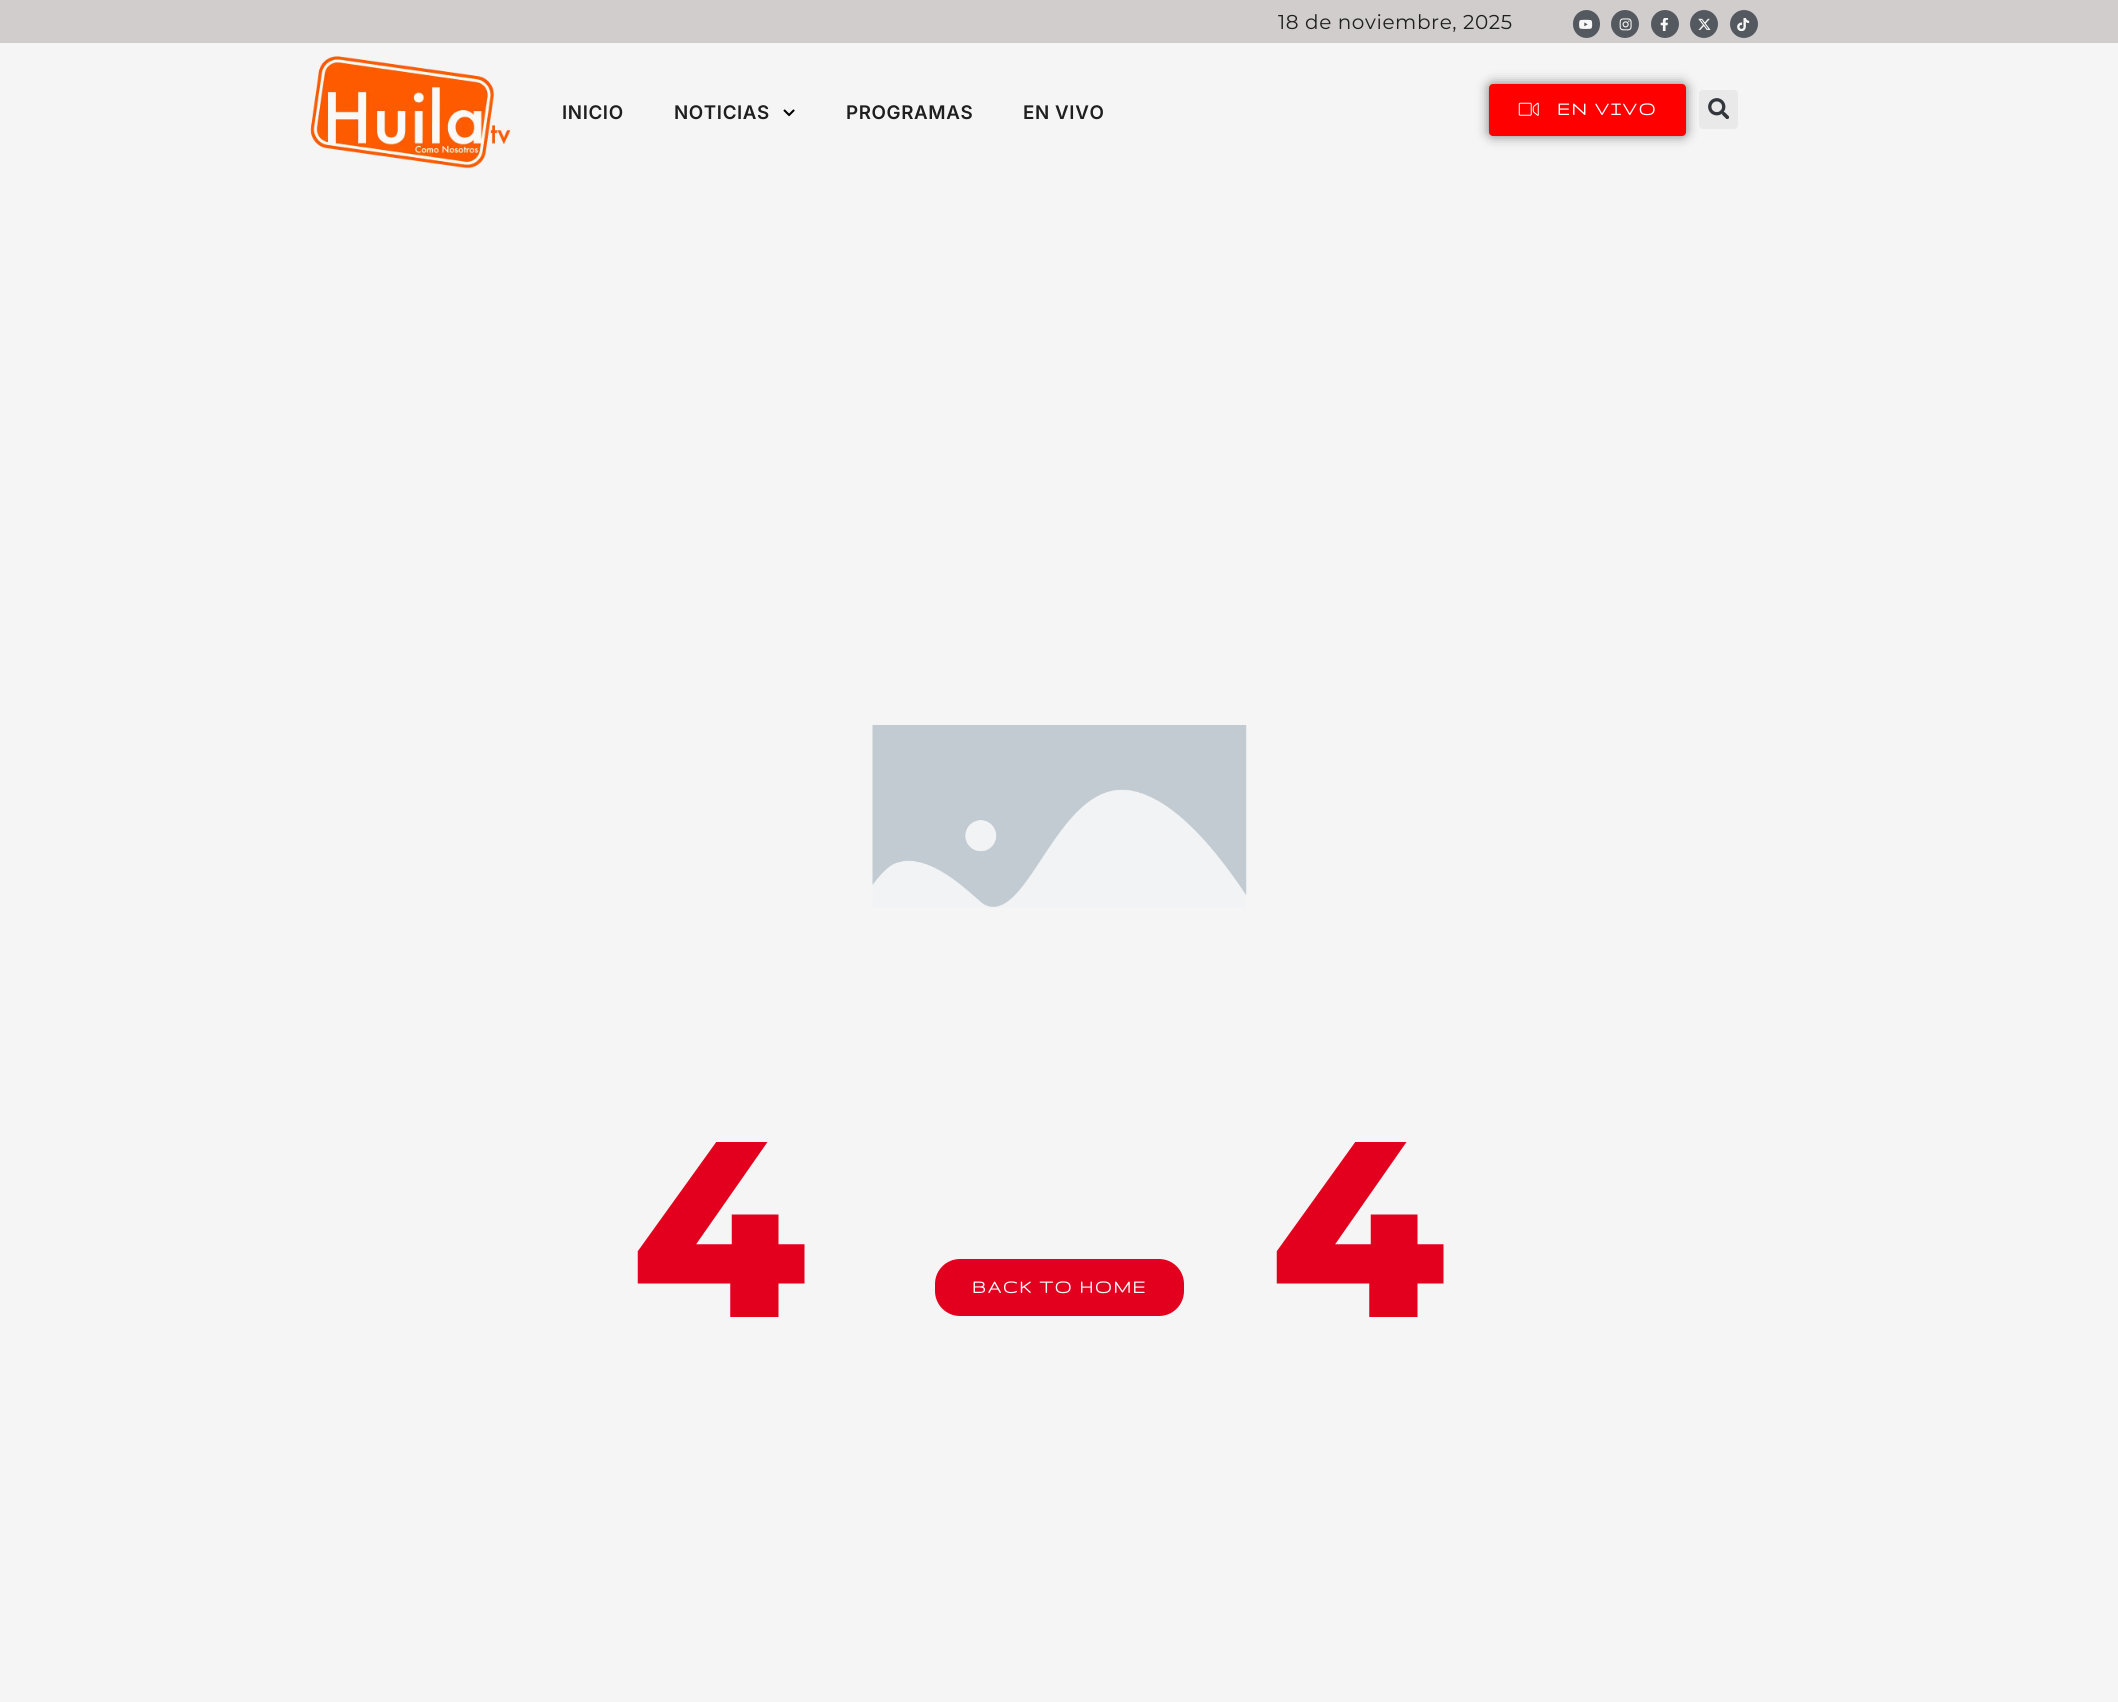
#include <cairo.h>
#include <math.h>
#include <stddef.h>


static void ink(cairo_t *ctx, unsigned color) {
    cairo_set_source_rgb(ctx, (color >> 16) / 255.0, (color >> 8 & 255) / 255.0, (color & 255) / 255.0);
}

static void write_spaced(cairo_t *ctx, double x, double y, const char *s, double letter, double word) {
    cairo_move_to(ctx, x, y);
    while (*s) {
        char ch[5] = {0};
        int n = 0;
        do ch[n++] = *s++; while ((*s & 0xC0) == 0x80);
        cairo_show_text(ctx, ch);
        cairo_rel_move_to(ctx, letter + word * (*ch == ' '), 0);
    }
}

static void round_path(cairo_t *ctx, double x, double y, double w, double h, double r) {
    cairo_new_sub_path(ctx);
    cairo_arc(ctx, x + w - r, y + h - r, r, 0, M_PI / 2);
    cairo_arc(ctx, x + r, y + h - r, r, M_PI / 2, M_PI);
    cairo_arc(ctx, x + r, y + r, r, M_PI, 1.5 * M_PI);
    cairo_arc(ctx, x + w - r, y + r, r, 1.5 * M_PI, 2 * M_PI);
    cairo_close_path(ctx);
}

static void blur_box(cairo_t *ctx, double x, double y, double w, double h, double r, double blur, double alpha) {
    cairo_push_group_with_content(ctx, CAIRO_CONTENT_ALPHA);
    cairo_set_operator(ctx, CAIRO_OPERATOR_SOURCE);
    for (int i = 15; i >= -15 && fmin(w, h) + blur * i / 3 > 0; i -= 2) {
        double e = blur * i / 6;
        cairo_set_source_rgba(ctx, 0, 0, 0, alpha * erfc((i - 1) / 8.5) / 2);
        round_path(ctx, x - e, y - e, w + 2 * e, h + 2 * e, fmax(0, fmin(r + e + blur * .6, fmin(w, h) / 2 + e)));
        cairo_fill(ctx);
    }
    cairo_pattern_t *soft = cairo_pop_group(ctx);
    cairo_mask(ctx, soft);
    cairo_pattern_destroy(soft);
}

static void paste(cairo_t *ctx, const char *path, double x, double y, double w, double h) {
    cairo_surface_t *image = cairo_image_surface_create_from_png(path);
    cairo_save(ctx);
    cairo_set_source_surface(ctx, image, x, y);
    cairo_rectangle(ctx, x, y, w, h);
    cairo_fill(ctx);
    cairo_restore(ctx);
    cairo_surface_destroy(image);
}

int main(void) {
    cairo_surface_t *surface = cairo_image_surface_create(CAIRO_FORMAT_RGB24, 2118, 1702);
    cairo_t *ctx = cairo_create(surface);
    cairo_font_options_t *options = cairo_font_options_create();
    cairo_font_options_set_hint_metrics(options, CAIRO_HINT_METRICS_OFF);
    cairo_font_options_set_hint_style(options, CAIRO_HINT_STYLE_NONE);
    cairo_set_font_options(ctx, options);
    cairo_set_miter_limit(ctx, 4);
    ink(ctx, 0xF5F5F5);
    cairo_paint(ctx);
    ink(ctx, 0xD1CDCD);
    cairo_rectangle(ctx, 0, 0, 2118, 43);
    cairo_fill(ctx);
    cairo_select_font_face(ctx, "Montserrat", CAIRO_FONT_SLANT_NORMAL, CAIRO_FONT_WEIGHT_NORMAL);
    cairo_set_font_size(ctx, 20);
    ink(ctx, 0x1F1F1F);
    write_spaced(ctx, 1278, 29, "18 de noviembre, 2025", 0.6, 0);
    ink(ctx, 0x54595F);
    round_path(ctx, 1573, 10, 27, 28, 13.5);
    cairo_fill(ctx);
    paste(ctx, "media/1.png", 1579, 19, 14, 10);
    cairo_arc(ctx, 1625, 24, 14, 0, 2 * M_PI);
    cairo_fill(ctx);
    paste(ctx, "media/2.png", 1619, 18, 13, 13);
    cairo_arc(ctx, 1665, 24, 14, 0, 2 * M_PI);
    cairo_fill(ctx);
    paste(ctx, "media/3.png", 1660, 18, 9, 13);
    cairo_arc(ctx, 1704, 24, 14, 0, 2 * M_PI);
    cairo_fill(ctx);
    paste(ctx, "media/4.png", 1698, 18, 13, 12);
    cairo_arc(ctx, 1744, 24, 14, 0, 2 * M_PI);
    cairo_fill(ctx);
    paste(ctx, "media/5.png", 1737, 18, 13, 13);
    paste(ctx, "media/6.png", 310, 56, 201, 113);
    cairo_select_font_face(ctx, "Inter SemiBold", CAIRO_FONT_SLANT_NORMAL, CAIRO_FONT_WEIGHT_NORMAL);
    cairo_set_font_size(ctx, 18.75);
    ink(ctx, 0x1F1F1F);
    write_spaced(ctx, 562, 119, "INICIO", 0.6, 0);
    write_spaced(ctx, 674, 119, "NOTICIAS", 0.6, 0);
    paste(ctx, "media/7.png", 783, 109, 12, 8);
    write_spaced(ctx, 846, 119, "PROGRAMAS", 0.6, 0);
    write_spaced(ctx, 1023, 119, "EN VIVO", 0.6, 0);
    ink(ctx, 0x000000);
    blur_box(ctx, 1489, 84, 197, 52, 4, 6, 0.5);
    ink(ctx, 0xFF0000);
    round_path(ctx, 1489, 84, 197, 52, 4);
    cairo_fill(ctx);
    paste(ctx, "media/8.png", 1518, 102, 21, 14);
    cairo_select_font_face(ctx, "Gruppo", CAIRO_FONT_SLANT_NORMAL, CAIRO_FONT_WEIGHT_BOLD);
    cairo_set_font_size(ctx, 20);
    ink(ctx, 0xFFFFFF);
    write_spaced(ctx, 1557, 115, "EN VIVO", 1.9, 0);
    ink(ctx, 0xE9E9E9);
    round_path(ctx, 1699, 90, 39, 39, 4);
    cairo_fill(ctx);
    paste(ctx, "media/9.png", 1708, 98, 21, 21);
    paste(ctx, "media/10.png", 872, 725, 375, 183);
    cairo_select_font_face(ctx, "Montserrat ExtraBold", CAIRO_FONT_SLANT_NORMAL, CAIRO_FONT_WEIGHT_NORMAL);
    cairo_set_font_size(ctx, 250);
    ink(ctx, 0xE3001E);
    write_spaced(ctx, 631, 1317, "4", 1, 0);
    write_spaced(ctx, 1270, 1317, "4", 1, 0);
    round_path(ctx, 935, 1259, 249, 57, 25);
    cairo_fill(ctx);
    cairo_select_font_face(ctx, "Gruppo", CAIRO_FONT_SLANT_NORMAL, CAIRO_FONT_WEIGHT_BOLD);
    cairo_set_font_size(ctx, 20);
    ink(ctx, 0xF8F8F8);
    write_spaced(ctx, 972, 1293, "BACK TO HOME", 1.9, 0);
    cairo_surface_write_to_png(surface, "image.png");
    cairo_font_options_destroy(options);
    cairo_destroy(ctx);
    cairo_surface_destroy(surface);
    return 0;
}
